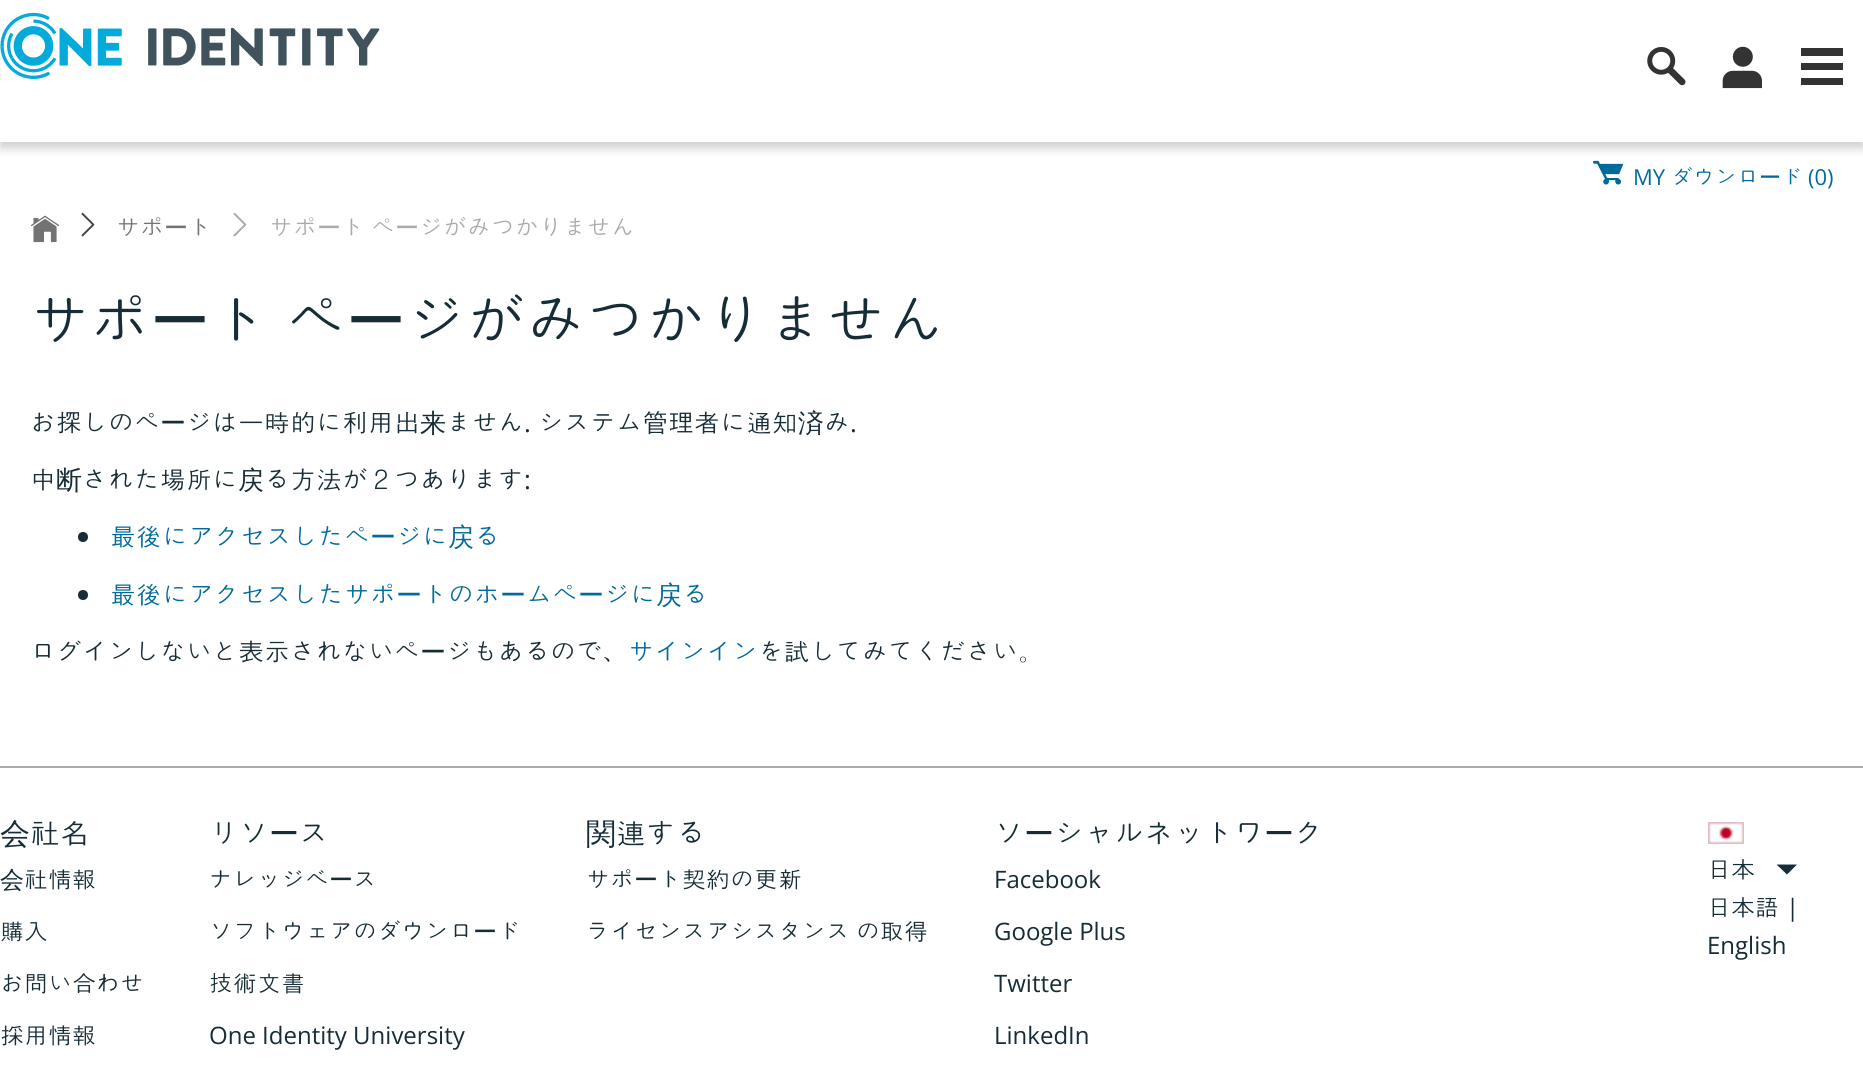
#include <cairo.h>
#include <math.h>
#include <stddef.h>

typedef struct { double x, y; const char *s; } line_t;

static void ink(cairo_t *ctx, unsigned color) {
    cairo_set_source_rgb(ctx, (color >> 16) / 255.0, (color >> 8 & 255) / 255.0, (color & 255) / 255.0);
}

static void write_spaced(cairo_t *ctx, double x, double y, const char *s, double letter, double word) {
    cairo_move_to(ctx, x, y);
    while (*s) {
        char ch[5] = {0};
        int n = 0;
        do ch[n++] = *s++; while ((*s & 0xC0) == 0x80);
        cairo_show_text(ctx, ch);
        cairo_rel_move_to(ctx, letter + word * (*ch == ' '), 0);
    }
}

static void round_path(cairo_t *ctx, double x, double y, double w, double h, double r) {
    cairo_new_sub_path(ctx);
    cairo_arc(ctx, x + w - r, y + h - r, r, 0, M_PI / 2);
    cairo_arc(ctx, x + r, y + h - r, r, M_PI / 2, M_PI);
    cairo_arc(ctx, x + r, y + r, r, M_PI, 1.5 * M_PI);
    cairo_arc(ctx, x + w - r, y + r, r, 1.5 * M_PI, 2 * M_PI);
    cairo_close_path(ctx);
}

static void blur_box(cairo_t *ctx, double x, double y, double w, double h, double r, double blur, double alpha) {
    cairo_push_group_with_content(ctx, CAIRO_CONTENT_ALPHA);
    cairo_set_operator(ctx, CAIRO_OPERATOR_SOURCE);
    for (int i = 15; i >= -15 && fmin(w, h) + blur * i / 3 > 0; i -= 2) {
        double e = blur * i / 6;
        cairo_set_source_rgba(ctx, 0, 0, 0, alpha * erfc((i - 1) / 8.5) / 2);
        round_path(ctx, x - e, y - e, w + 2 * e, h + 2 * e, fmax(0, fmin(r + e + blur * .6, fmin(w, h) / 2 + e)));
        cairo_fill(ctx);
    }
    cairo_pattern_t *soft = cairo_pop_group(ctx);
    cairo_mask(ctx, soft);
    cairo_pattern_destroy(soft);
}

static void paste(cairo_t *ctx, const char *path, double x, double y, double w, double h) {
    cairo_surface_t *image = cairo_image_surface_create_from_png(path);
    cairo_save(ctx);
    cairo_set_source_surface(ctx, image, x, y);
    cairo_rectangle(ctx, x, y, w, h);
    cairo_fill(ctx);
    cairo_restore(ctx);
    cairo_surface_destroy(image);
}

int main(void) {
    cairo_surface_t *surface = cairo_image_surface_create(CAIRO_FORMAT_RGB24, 1863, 1084);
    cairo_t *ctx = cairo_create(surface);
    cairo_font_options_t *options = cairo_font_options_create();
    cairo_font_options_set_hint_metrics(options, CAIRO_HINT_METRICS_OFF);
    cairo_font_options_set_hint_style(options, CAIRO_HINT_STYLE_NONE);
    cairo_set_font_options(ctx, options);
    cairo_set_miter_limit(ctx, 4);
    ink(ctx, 0xFFFFFF);
    cairo_paint(ctx);
    paste(ctx, "media/4.png", 1593, 160, 30, 25);
    cairo_save(ctx);
    cairo_rectangle(ctx, 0, 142, 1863, 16);
    cairo_clip(ctx);
    ink(ctx, 0xCDCDCD);
    blur_box(ctx, 0, 4, 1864, 144, 0, 5, 1);
    cairo_restore(ctx);
    paste(ctx, "media/1.png", 0, 12, 380, 67);
    paste(ctx, "media/2.png", 1647, 47, 39, 39);
    paste(ctx, "media/3.png", 1722, 46, 40, 43);
    ink(ctx, 0x333333);
    cairo_new_path(ctx);
    cairo_move_to(ctx, 1801, 48);
    cairo_line_to(ctx, 1843, 48);
    cairo_line_to(ctx, 1843, 56);
    cairo_line_to(ctx, 1801, 56);
    cairo_close_path(ctx);
    cairo_move_to(ctx, 1801, 63);
    cairo_line_to(ctx, 1843, 63);
    cairo_line_to(ctx, 1843, 70);
    cairo_line_to(ctx, 1801, 70);
    cairo_close_path(ctx);
    cairo_move_to(ctx, 1801, 78);
    cairo_line_to(ctx, 1843, 78);
    cairo_line_to(ctx, 1843, 85);
    cairo_line_to(ctx, 1801, 85);
    cairo_close_path(ctx);
    cairo_fill(ctx);
    cairo_select_font_face(ctx, "Open Sans", CAIRO_FONT_SLANT_NORMAL, CAIRO_FONT_WEIGHT_NORMAL);
    cairo_set_font_size(ctx, 22);
    ink(ctx, 0x016A9C);
    cairo_move_to(ctx, 1633, 185);
    cairo_show_text(ctx, "MY");
    cairo_select_font_face(ctx, "Gulim", CAIRO_FONT_SLANT_NORMAL, CAIRO_FONT_WEIGHT_NORMAL);
    cairo_move_to(ctx, 1671, 185);
    cairo_show_text(ctx, "ダウンロ");
    cairo_select_font_face(ctx, "WenQuanYi Zen Hei Medium", CAIRO_FONT_SLANT_NORMAL, CAIRO_FONT_WEIGHT_NORMAL);
    cairo_move_to(ctx, 1759, 185);
    cairo_show_text(ctx, "ー");
    cairo_select_font_face(ctx, "Gulim", CAIRO_FONT_SLANT_NORMAL, CAIRO_FONT_WEIGHT_NORMAL);
    cairo_move_to(ctx, 1781, 185);
    cairo_show_text(ctx, "ド");
    cairo_select_font_face(ctx, "Open Sans", CAIRO_FONT_SLANT_NORMAL, CAIRO_FONT_WEIGHT_NORMAL);
    cairo_move_to(ctx, 1808, 185);
    cairo_show_text(ctx, "(0)");
    paste(ctx, "media/5.png", 31, 215, 29, 28);
    paste(ctx, "media/6.png", 81, 212, 14, 25);
    cairo_select_font_face(ctx, "Gulim", CAIRO_FONT_SLANT_NORMAL, CAIRO_FONT_WEIGHT_NORMAL);
    cairo_set_font_size(ctx, 24);
    ink(ctx, 0x737373);
    cairo_move_to(ctx, 116, 236);
    cairo_show_text(ctx, "サポ");
    cairo_select_font_face(ctx, "WenQuanYi Zen Hei Medium", CAIRO_FONT_SLANT_NORMAL, CAIRO_FONT_WEIGHT_NORMAL);
    cairo_move_to(ctx, 164, 236);
    cairo_show_text(ctx, "ー");
    cairo_select_font_face(ctx, "Gulim", CAIRO_FONT_SLANT_NORMAL, CAIRO_FONT_WEIGHT_NORMAL);
    cairo_move_to(ctx, 188, 236);
    cairo_show_text(ctx, "ト");
    paste(ctx, "media/7.png", 233, 212, 14, 25);
    ink(ctx, 0xAAAAAA);
    cairo_move_to(ctx, 269, 236);
    cairo_show_text(ctx, "サポ");
    cairo_select_font_face(ctx, "WenQuanYi Zen Hei Medium", CAIRO_FONT_SLANT_NORMAL, CAIRO_FONT_WEIGHT_NORMAL);
    cairo_move_to(ctx, 317, 236);
    cairo_show_text(ctx, "ー");
    cairo_select_font_face(ctx, "Gulim", CAIRO_FONT_SLANT_NORMAL, CAIRO_FONT_WEIGHT_NORMAL);
    write_spaced(ctx, 341, 236, "ト ペ", 0, -2);
    cairo_select_font_face(ctx, "WenQuanYi Zen Hei Medium", CAIRO_FONT_SLANT_NORMAL, CAIRO_FONT_WEIGHT_NORMAL);
    cairo_move_to(ctx, 395, 236);
    cairo_show_text(ctx, "ー");
    cairo_select_font_face(ctx, "Gulim", CAIRO_FONT_SLANT_NORMAL, CAIRO_FONT_WEIGHT_NORMAL);
    cairo_move_to(ctx, 419, 236);
    cairo_show_text(ctx, "ジがみつかりません");
    cairo_set_font_size(ctx, 60);
    ink(ctx, 0x162C36);
    cairo_move_to(ctx, 30, 342);
    cairo_show_text(ctx, "サポ");
    cairo_select_font_face(ctx, "WenQuanYi Zen Hei Medium", CAIRO_FONT_SLANT_NORMAL, CAIRO_FONT_WEIGHT_NORMAL);
    cairo_move_to(ctx, 150, 342);
    cairo_show_text(ctx, "ー");
    cairo_select_font_face(ctx, "Gulim", CAIRO_FONT_SLANT_NORMAL, CAIRO_FONT_WEIGHT_NORMAL);
    write_spaced(ctx, 210, 342, "ト ペ", 0, -4);
    cairo_select_font_face(ctx, "WenQuanYi Zen Hei Medium", CAIRO_FONT_SLANT_NORMAL, CAIRO_FONT_WEIGHT_NORMAL);
    cairo_move_to(ctx, 346, 342);
    cairo_show_text(ctx, "ー");
    cairo_select_font_face(ctx, "Gulim", CAIRO_FONT_SLANT_NORMAL, CAIRO_FONT_WEIGHT_NORMAL);
    cairo_move_to(ctx, 406, 342);
    cairo_show_text(ctx, "ジがみつかりません");
    cairo_set_font_size(ctx, 26);
    cairo_move_to(ctx, 30, 432);
    cairo_show_text(ctx, "お探しのペ");
    cairo_select_font_face(ctx, "WenQuanYi Zen Hei Medium", CAIRO_FONT_SLANT_NORMAL, CAIRO_FONT_WEIGHT_NORMAL);
    cairo_move_to(ctx, 160, 432);
    cairo_show_text(ctx, "ー");
    cairo_select_font_face(ctx, "Gulim", CAIRO_FONT_SLANT_NORMAL, CAIRO_FONT_WEIGHT_NORMAL);
    cairo_move_to(ctx, 186, 432);
    cairo_show_text(ctx, "ジは一時的に利用出");
    cairo_select_font_face(ctx, "WenQuanYi Zen Hei Medium", CAIRO_FONT_SLANT_NORMAL, CAIRO_FONT_WEIGHT_NORMAL);
    cairo_move_to(ctx, 420, 432);
    cairo_show_text(ctx, "来");
    cairo_select_font_face(ctx, "Gulim", CAIRO_FONT_SLANT_NORMAL, CAIRO_FONT_WEIGHT_NORMAL);
    cairo_move_to(ctx, 446, 432);
    cairo_show_text(ctx, "ません");
    cairo_move_to(ctx, 538, 432);
    cairo_show_text(ctx, "システム管理者に通知");
    cairo_select_font_face(ctx, "WenQuanYi Zen Hei Medium", CAIRO_FONT_SLANT_NORMAL, CAIRO_FONT_WEIGHT_NORMAL);
    cairo_move_to(ctx, 798, 432);
    cairo_show_text(ctx, "済");
    cairo_select_font_face(ctx, "Gulim", CAIRO_FONT_SLANT_NORMAL, CAIRO_FONT_WEIGHT_NORMAL);
    cairo_move_to(ctx, 824, 432);
    cairo_show_text(ctx, "み");
    cairo_select_font_face(ctx, "Open Sans", CAIRO_FONT_SLANT_NORMAL, CAIRO_FONT_WEIGHT_NORMAL);
    cairo_move_to(ctx, 524, 432);
    cairo_show_text(ctx, ".");
    cairo_move_to(ctx, 850, 432);
    cairo_show_text(ctx, ".");
    cairo_select_font_face(ctx, "Gulim", CAIRO_FONT_SLANT_NORMAL, CAIRO_FONT_WEIGHT_NORMAL);
    cairo_move_to(ctx, 30, 489);
    cairo_show_text(ctx, "中");
    cairo_select_font_face(ctx, "WenQuanYi Zen Hei Medium", CAIRO_FONT_SLANT_NORMAL, CAIRO_FONT_WEIGHT_NORMAL);
    cairo_move_to(ctx, 56, 489);
    cairo_show_text(ctx, "断");
    cairo_select_font_face(ctx, "Gulim", CAIRO_FONT_SLANT_NORMAL, CAIRO_FONT_WEIGHT_NORMAL);
    cairo_move_to(ctx, 82, 489);
    cairo_show_text(ctx, "された場所に");
    cairo_select_font_face(ctx, "WenQuanYi Zen Hei Medium", CAIRO_FONT_SLANT_NORMAL, CAIRO_FONT_WEIGHT_NORMAL);
    cairo_move_to(ctx, 238, 489);
    cairo_show_text(ctx, "戻");
    cairo_select_font_face(ctx, "Gulim", CAIRO_FONT_SLANT_NORMAL, CAIRO_FONT_WEIGHT_NORMAL);
    cairo_move_to(ctx, 264, 489);
    cairo_show_text(ctx, "る方法が２つあります");
    cairo_select_font_face(ctx, "Open Sans", CAIRO_FONT_SLANT_NORMAL, CAIRO_FONT_WEIGHT_NORMAL);
    cairo_move_to(ctx, 524, 489);
    cairo_show_text(ctx, ":");
    cairo_new_path(ctx);
    cairo_arc(ctx, 83, 537, 5, 0, 2 * M_PI);
    cairo_fill(ctx);
    cairo_select_font_face(ctx, "Gulim", CAIRO_FONT_SLANT_NORMAL, CAIRO_FONT_WEIGHT_NORMAL);
    ink(ctx, 0x016A9C);
    cairo_move_to(ctx, 110, 546);
    cairo_show_text(ctx, "最後にアクセスしたペ");
    cairo_select_font_face(ctx, "WenQuanYi Zen Hei Medium", CAIRO_FONT_SLANT_NORMAL, CAIRO_FONT_WEIGHT_NORMAL);
    cairo_move_to(ctx, 370, 546);
    cairo_show_text(ctx, "ー");
    cairo_select_font_face(ctx, "Gulim", CAIRO_FONT_SLANT_NORMAL, CAIRO_FONT_WEIGHT_NORMAL);
    cairo_move_to(ctx, 396, 546);
    cairo_show_text(ctx, "ジに");
    cairo_select_font_face(ctx, "WenQuanYi Zen Hei Medium", CAIRO_FONT_SLANT_NORMAL, CAIRO_FONT_WEIGHT_NORMAL);
    cairo_move_to(ctx, 448, 546);
    cairo_show_text(ctx, "戻");
    cairo_select_font_face(ctx, "Gulim", CAIRO_FONT_SLANT_NORMAL, CAIRO_FONT_WEIGHT_NORMAL);
    cairo_move_to(ctx, 474, 546);
    cairo_show_text(ctx, "る");
    ink(ctx, 0x162C36);
    cairo_new_path(ctx);
    cairo_arc(ctx, 83, 595, 5, 0, 2 * M_PI);
    cairo_fill(ctx);
    ink(ctx, 0x016A9C);
    cairo_move_to(ctx, 110, 604);
    cairo_show_text(ctx, "最後にアクセスしたサポ");
    cairo_select_font_face(ctx, "WenQuanYi Zen Hei Medium", CAIRO_FONT_SLANT_NORMAL, CAIRO_FONT_WEIGHT_NORMAL);
    cairo_move_to(ctx, 396, 604);
    cairo_show_text(ctx, "ー");
    cairo_select_font_face(ctx, "Gulim", CAIRO_FONT_SLANT_NORMAL, CAIRO_FONT_WEIGHT_NORMAL);
    cairo_move_to(ctx, 422, 604);
    cairo_show_text(ctx, "トのホ");
    cairo_select_font_face(ctx, "WenQuanYi Zen Hei Medium", CAIRO_FONT_SLANT_NORMAL, CAIRO_FONT_WEIGHT_NORMAL);
    cairo_move_to(ctx, 500, 604);
    cairo_show_text(ctx, "ー");
    cairo_select_font_face(ctx, "Gulim", CAIRO_FONT_SLANT_NORMAL, CAIRO_FONT_WEIGHT_NORMAL);
    cairo_move_to(ctx, 526, 604);
    cairo_show_text(ctx, "ムペ");
    cairo_select_font_face(ctx, "WenQuanYi Zen Hei Medium", CAIRO_FONT_SLANT_NORMAL, CAIRO_FONT_WEIGHT_NORMAL);
    cairo_move_to(ctx, 578, 604);
    cairo_show_text(ctx, "ー");
    cairo_select_font_face(ctx, "Gulim", CAIRO_FONT_SLANT_NORMAL, CAIRO_FONT_WEIGHT_NORMAL);
    cairo_move_to(ctx, 604, 604);
    cairo_show_text(ctx, "ジに");
    cairo_select_font_face(ctx, "WenQuanYi Zen Hei Medium", CAIRO_FONT_SLANT_NORMAL, CAIRO_FONT_WEIGHT_NORMAL);
    cairo_move_to(ctx, 656, 604);
    cairo_show_text(ctx, "戻");
    cairo_select_font_face(ctx, "Gulim", CAIRO_FONT_SLANT_NORMAL, CAIRO_FONT_WEIGHT_NORMAL);
    cairo_move_to(ctx, 682, 604);
    cairo_show_text(ctx, "る");
    ink(ctx, 0x162C36);
    cairo_move_to(ctx, 30, 661);
    cairo_show_text(ctx, "ログインしないと表示されないペ");
    cairo_select_font_face(ctx, "WenQuanYi Zen Hei Medium", CAIRO_FONT_SLANT_NORMAL, CAIRO_FONT_WEIGHT_NORMAL);
    cairo_move_to(ctx, 420, 661);
    cairo_show_text(ctx, "ー");
    cairo_select_font_face(ctx, "Gulim", CAIRO_FONT_SLANT_NORMAL, CAIRO_FONT_WEIGHT_NORMAL);
    cairo_move_to(ctx, 446, 661);
    cairo_show_text(ctx, "ジもあるので、");
    ink(ctx, 0x016A9C);
    cairo_move_to(ctx, 628, 661);
    cairo_show_text(ctx, "サインイン");
    ink(ctx, 0x162C36);
    cairo_move_to(ctx, 758, 661);
    cairo_show_text(ctx, "を試してみてください。");
    ink(ctx, 0xAAAAAA);
    cairo_rectangle(ctx, 0, 766, 1863, 2);
    cairo_fill(ctx);
    cairo_select_font_face(ctx, "WenQuanYi Zen Hei Medium", CAIRO_FONT_SLANT_NORMAL, CAIRO_FONT_WEIGHT_NORMAL);
    cairo_set_font_size(ctx, 30);
    ink(ctx, 0x162C36);
    cairo_move_to(ctx, 0, 844);
    cairo_show_text(ctx, "会");
    cairo_select_font_face(ctx, "Gulim", CAIRO_FONT_SLANT_NORMAL, CAIRO_FONT_WEIGHT_NORMAL);
    cairo_move_to(ctx, 30, 844);
    cairo_show_text(ctx, "社名");
    cairo_select_font_face(ctx, "WenQuanYi Zen Hei Medium", CAIRO_FONT_SLANT_NORMAL, CAIRO_FONT_WEIGHT_NORMAL);
    cairo_set_font_size(ctx, 24);
    cairo_move_to(ctx, 0, 888);
    cairo_show_text(ctx, "会");
    cairo_select_font_face(ctx, "Gulim", CAIRO_FONT_SLANT_NORMAL, CAIRO_FONT_WEIGHT_NORMAL);
    {
        static const line_t items[] = {
            {24, 888, "社情報"},
            {0, 940, "購入"},
            {0, 992, "お問い合わせ"},
            {0, 1044, "採用情報"},
        };
        for (size_t i = 0; i < sizeof items / sizeof *items; i++) {
            cairo_move_to(ctx, items[i].x, items[i].y);
            cairo_show_text(ctx, items[i].s);
        }
    }
    cairo_set_font_size(ctx, 30);
    cairo_move_to(ctx, 209, 844);
    cairo_show_text(ctx, "リソ");
    cairo_select_font_face(ctx, "WenQuanYi Zen Hei Medium", CAIRO_FONT_SLANT_NORMAL, CAIRO_FONT_WEIGHT_NORMAL);
    cairo_move_to(ctx, 269, 844);
    cairo_show_text(ctx, "ー");
    cairo_select_font_face(ctx, "Gulim", CAIRO_FONT_SLANT_NORMAL, CAIRO_FONT_WEIGHT_NORMAL);
    cairo_move_to(ctx, 299, 844);
    cairo_show_text(ctx, "ス");
    cairo_set_font_size(ctx, 24);
    cairo_move_to(ctx, 209, 888);
    cairo_show_text(ctx, "ナレッジベ");
    cairo_select_font_face(ctx, "WenQuanYi Zen Hei Medium", CAIRO_FONT_SLANT_NORMAL, CAIRO_FONT_WEIGHT_NORMAL);
    cairo_move_to(ctx, 329, 888);
    cairo_show_text(ctx, "ー");
    cairo_select_font_face(ctx, "Gulim", CAIRO_FONT_SLANT_NORMAL, CAIRO_FONT_WEIGHT_NORMAL);
    cairo_move_to(ctx, 353, 888);
    cairo_show_text(ctx, "ス");
    cairo_move_to(ctx, 209, 940);
    cairo_show_text(ctx, "ソフトウェアのダウンロ");
    cairo_select_font_face(ctx, "WenQuanYi Zen Hei Medium", CAIRO_FONT_SLANT_NORMAL, CAIRO_FONT_WEIGHT_NORMAL);
    cairo_move_to(ctx, 473, 940);
    cairo_show_text(ctx, "ー");
    cairo_select_font_face(ctx, "Gulim", CAIRO_FONT_SLANT_NORMAL, CAIRO_FONT_WEIGHT_NORMAL);
    cairo_move_to(ctx, 497, 940);
    cairo_show_text(ctx, "ド");
    cairo_move_to(ctx, 209, 992);
    cairo_show_text(ctx, "技術文書");
    cairo_select_font_face(ctx, "Open Sans", CAIRO_FONT_SLANT_NORMAL, CAIRO_FONT_WEIGHT_NORMAL);
    cairo_move_to(ctx, 209, 1044);
    cairo_show_text(ctx, "One Identity University");
    cairo_select_font_face(ctx, "WenQuanYi Zen Hei Medium", CAIRO_FONT_SLANT_NORMAL, CAIRO_FONT_WEIGHT_NORMAL);
    cairo_set_font_size(ctx, 30);
    cairo_move_to(ctx, 586, 844);
    cairo_show_text(ctx, "関");
    cairo_select_font_face(ctx, "Gulim", CAIRO_FONT_SLANT_NORMAL, CAIRO_FONT_WEIGHT_NORMAL);
    cairo_move_to(ctx, 616, 844);
    cairo_show_text(ctx, "連する");
    cairo_set_font_size(ctx, 24);
    cairo_move_to(ctx, 586, 888);
    cairo_show_text(ctx, "サポ");
    cairo_select_font_face(ctx, "WenQuanYi Zen Hei Medium", CAIRO_FONT_SLANT_NORMAL, CAIRO_FONT_WEIGHT_NORMAL);
    cairo_move_to(ctx, 634, 888);
    cairo_show_text(ctx, "ー");
    cairo_select_font_face(ctx, "Gulim", CAIRO_FONT_SLANT_NORMAL, CAIRO_FONT_WEIGHT_NORMAL);
    cairo_move_to(ctx, 658, 888);
    cairo_show_text(ctx, "ト契約の更新");
    write_spaced(ctx, 586, 940, "ライセンスアシスタンス の取得", 0, -2);
    cairo_set_font_size(ctx, 30);
    cairo_move_to(ctx, 994, 844);
    cairo_show_text(ctx, "ソ");
    cairo_select_font_face(ctx, "WenQuanYi Zen Hei Medium", CAIRO_FONT_SLANT_NORMAL, CAIRO_FONT_WEIGHT_NORMAL);
    cairo_move_to(ctx, 1024, 844);
    cairo_show_text(ctx, "ー");
    cairo_select_font_face(ctx, "Gulim", CAIRO_FONT_SLANT_NORMAL, CAIRO_FONT_WEIGHT_NORMAL);
    cairo_move_to(ctx, 1054, 844);
    cairo_show_text(ctx, "シャルネットワ");
    cairo_select_font_face(ctx, "WenQuanYi Zen Hei Medium", CAIRO_FONT_SLANT_NORMAL, CAIRO_FONT_WEIGHT_NORMAL);
    cairo_move_to(ctx, 1264, 844);
    cairo_show_text(ctx, "ー");
    cairo_select_font_face(ctx, "Gulim", CAIRO_FONT_SLANT_NORMAL, CAIRO_FONT_WEIGHT_NORMAL);
    cairo_move_to(ctx, 1294, 844);
    cairo_show_text(ctx, "ク");
    cairo_select_font_face(ctx, "Open Sans", CAIRO_FONT_SLANT_NORMAL, CAIRO_FONT_WEIGHT_NORMAL);
    cairo_set_font_size(ctx, 24);
    {
        static const line_t items[] = {
            {994, 888, "Facebook"},
            {994, 940, "Google Plus"},
            {994, 992, "Twitter"},
            {994, 1044, "LinkedIn"},
        };
        for (size_t i = 0; i < sizeof items / sizeof *items; i++) {
            cairo_move_to(ctx, items[i].x, items[i].y);
            cairo_show_text(ctx, items[i].s);
        }
    }
    paste(ctx, "media/8.png", 1708, 822, 36, 22);
    cairo_select_font_face(ctx, "Gulim", CAIRO_FONT_SLANT_NORMAL, CAIRO_FONT_WEIGHT_NORMAL);
    cairo_move_to(ctx, 1707, 878);
    cairo_show_text(ctx, "日本");
    cairo_new_path(ctx);
    cairo_move_to(ctx, 1797, 864.5);
    cairo_line_to(ctx, 1787, 874.5);
    cairo_line_to(ctx, 1776.5, 864.5);
    cairo_close_path(ctx);
    cairo_fill(ctx);
    cairo_move_to(ctx, 1707, 916);
    cairo_show_text(ctx, "日本語");
    cairo_select_font_face(ctx, "Open Sans", CAIRO_FONT_SLANT_NORMAL, CAIRO_FONT_WEIGHT_NORMAL);
    cairo_move_to(ctx, 1786, 916);
    cairo_show_text(ctx, "|");
    cairo_move_to(ctx, 1707, 954);
    cairo_show_text(ctx, "English");
    cairo_surface_write_to_png(surface, "image.png");
    cairo_font_options_destroy(options);
    cairo_destroy(ctx);
    cairo_surface_destroy(surface);
    return 0;
}
